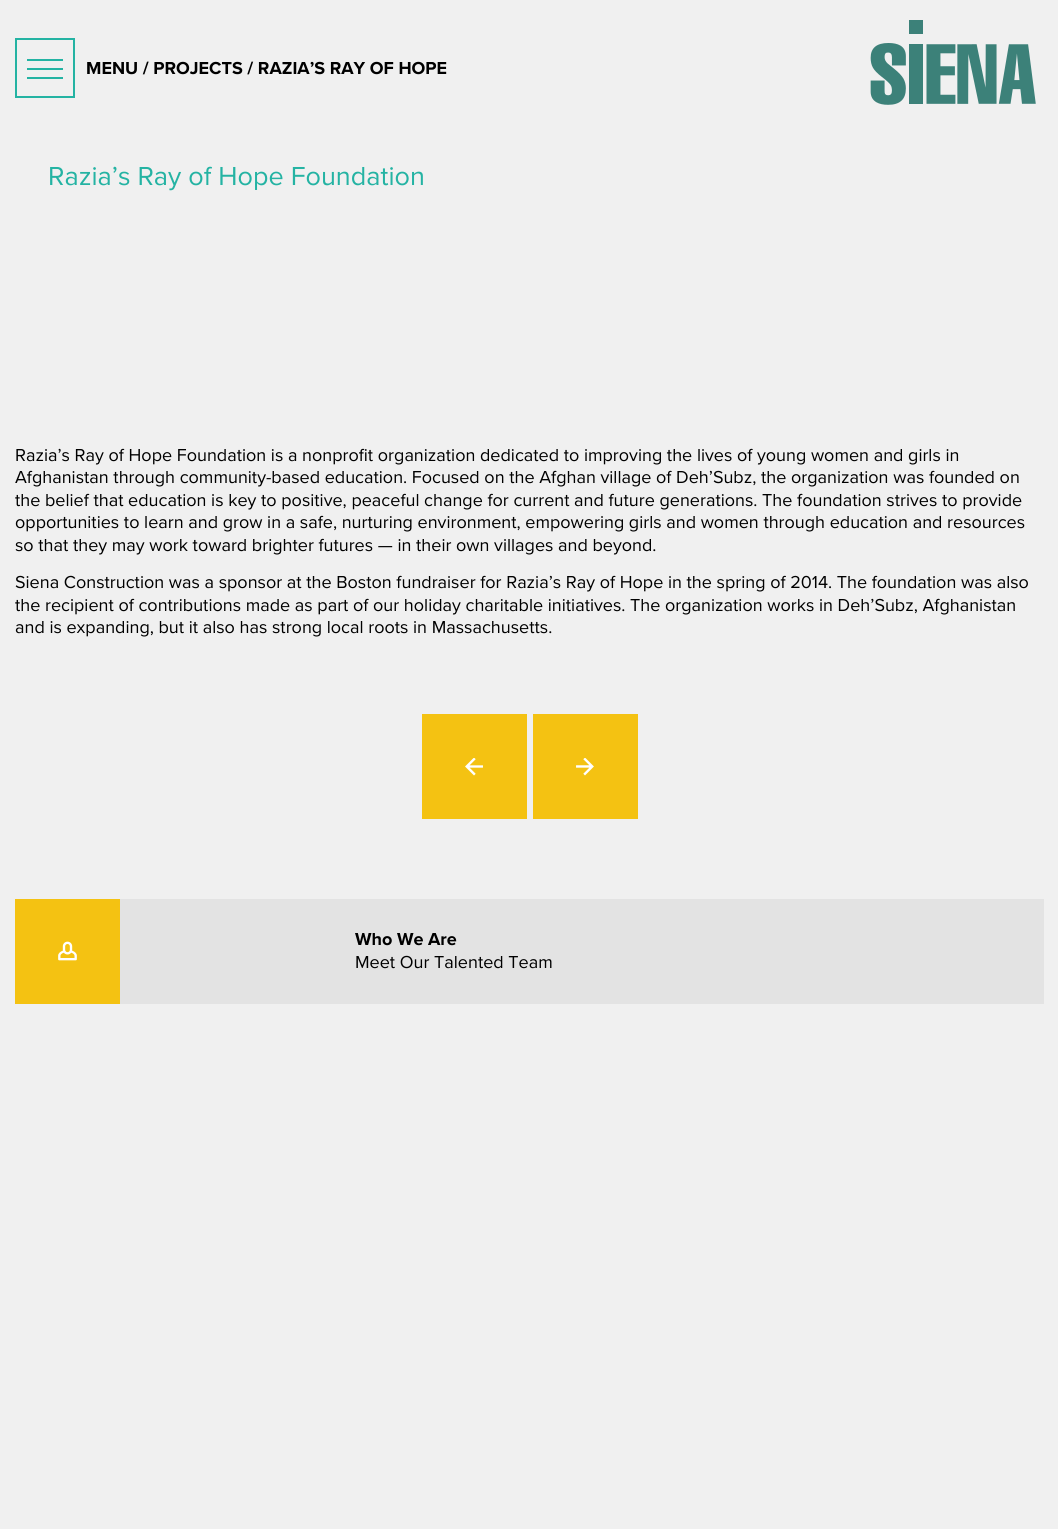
#include <cairo.h>
#include <math.h>
#include <stddef.h>

typedef struct { double x, y; const char *s; } line_t;
typedef struct { double x, y, w, h; unsigned color; } box_t;

static void ink(cairo_t *ctx, unsigned color) {
    cairo_set_source_rgb(ctx, (color >> 16) / 255.0, (color >> 8 & 255) / 255.0, (color & 255) / 255.0);
}

static void paste(cairo_t *ctx, const char *path, double x, double y, double w, double h) {
    cairo_surface_t *image = cairo_image_surface_create_from_png(path);
    cairo_save(ctx);
    cairo_set_source_surface(ctx, image, x, y);
    cairo_rectangle(ctx, x, y, w, h);
    cairo_fill(ctx);
    cairo_restore(ctx);
    cairo_surface_destroy(image);
}

int main(void) {
    cairo_surface_t *surface = cairo_image_surface_create(CAIRO_FORMAT_RGB24, 1058, 1529);
    cairo_t *ctx = cairo_create(surface);
    cairo_font_options_t *options = cairo_font_options_create();
    cairo_font_options_set_hint_metrics(options, CAIRO_HINT_METRICS_OFF);
    cairo_font_options_set_hint_style(options, CAIRO_HINT_STYLE_NONE);
    cairo_set_font_options(ctx, options);
    cairo_set_miter_limit(ctx, 4);
    ink(ctx, 0xF0F0F0);
    cairo_paint(ctx);
    cairo_rectangle(ctx, 16, 39, 58, 58);
    ink(ctx, 0x24B3A3);
    cairo_stroke(ctx);
    {
        static const box_t items[] = {
            {27, 59, 36, 2, 0x24B3A3},
            {27, 68, 36, 2, 0x24B3A3},
            {27, 77, 36, 2, 0x24B3A3},
        };
        for (size_t i = 0; i < sizeof items / sizeof *items; i++) {
            ink(ctx, items[i].color);
            cairo_rectangle(ctx, items[i].x, items[i].y, items[i].w, items[i].h);
            cairo_fill(ctx);
        }
    }
    cairo_select_font_face(ctx, "Proxima Nova", CAIRO_FONT_SLANT_NORMAL, CAIRO_FONT_WEIGHT_BOLD);
    cairo_set_font_size(ctx, 18);
    ink(ctx, 0x000000);
    cairo_move_to(ctx, 86, 74);
    cairo_show_text(ctx, "MENU / PROJECTS / RAZIA’S RAY OF HOPE");
    paste(ctx, "media/1.png", 870, 20, 166, 85);
    cairo_select_font_face(ctx, "Proxima Nova", CAIRO_FONT_SLANT_NORMAL, CAIRO_FONT_WEIGHT_NORMAL);
    cairo_set_font_size(ctx, 27);
    ink(ctx, 0x24B3A3);
    cairo_move_to(ctx, 48, 185);
    cairo_show_text(ctx, "Razia’s Ray of Hope Foundation");
    cairo_set_font_size(ctx, 18);
    ink(ctx, 0x000000);
    {
        static const line_t items[] = {
            {15, 461, "Razia’s Ray of Hope Foundation is a nonprofit organization dedicated to improving the lives of young women and girls in"},
            {15, 483, "Afghanistan through community-based education. Focused on the Afghan village of Deh’Subz, the organization was founded on"},
            {15, 506, "the belief that education is key to positive, peaceful change for current and future generations. The foundation strives to provide"},
            {15, 528, "opportunities to learn and grow in a safe, nurturing environment, empowering girls and women through education and resources"},
            {15, 551, "so that they may work toward brighter futures — in their own villages and beyond."},
            {15, 588, "Siena Construction was a sponsor at the Boston fundraiser for Razia’s Ray of Hope in the spring of 2014. The foundation was also"},
            {15, 611, "the recipient of contributions made as part of our holiday charitable initiatives. The organization works in Deh’Subz, Afghanistan"},
            {15, 633, "and is expanding, but it also has strong local roots in Massachusetts."},
        };
        for (size_t i = 0; i < sizeof items / sizeof *items; i++) {
            cairo_move_to(ctx, items[i].x, items[i].y);
            cairo_show_text(ctx, items[i].s);
        }
    }
    ink(ctx, 0xF4C212);
    cairo_rectangle(ctx, 422, 714, 105, 105);
    cairo_fill(ctx);
    paste(ctx, "media/2.png", 465, 758, 18, 18);
    cairo_rectangle(ctx, 533, 714, 105, 105);
    cairo_fill(ctx);
    paste(ctx, "media/3.png", 576, 758, 18, 18);
    ink(ctx, 0xE3E3E3);
    cairo_rectangle(ctx, 120, 899, 924, 105);
    cairo_fill(ctx);
    ink(ctx, 0xF4C212);
    cairo_rectangle(ctx, 15, 899, 105, 105);
    cairo_fill(ctx);
    paste(ctx, "media/4.png", 58, 941, 19, 20);
    cairo_select_font_face(ctx, "Proxima Nova", CAIRO_FONT_SLANT_NORMAL, CAIRO_FONT_WEIGHT_BOLD);
    ink(ctx, 0x000000);
    cairo_move_to(ctx, 355, 945);
    cairo_show_text(ctx, "Who We Are");
    cairo_select_font_face(ctx, "Proxima Nova", CAIRO_FONT_SLANT_NORMAL, CAIRO_FONT_WEIGHT_NORMAL);
    cairo_move_to(ctx, 355, 968);
    cairo_show_text(ctx, "Meet Our Talented Team");
    cairo_surface_write_to_png(surface, "image.png");
    cairo_font_options_destroy(options);
    cairo_destroy(ctx);
    cairo_surface_destroy(surface);
    return 0;
}
